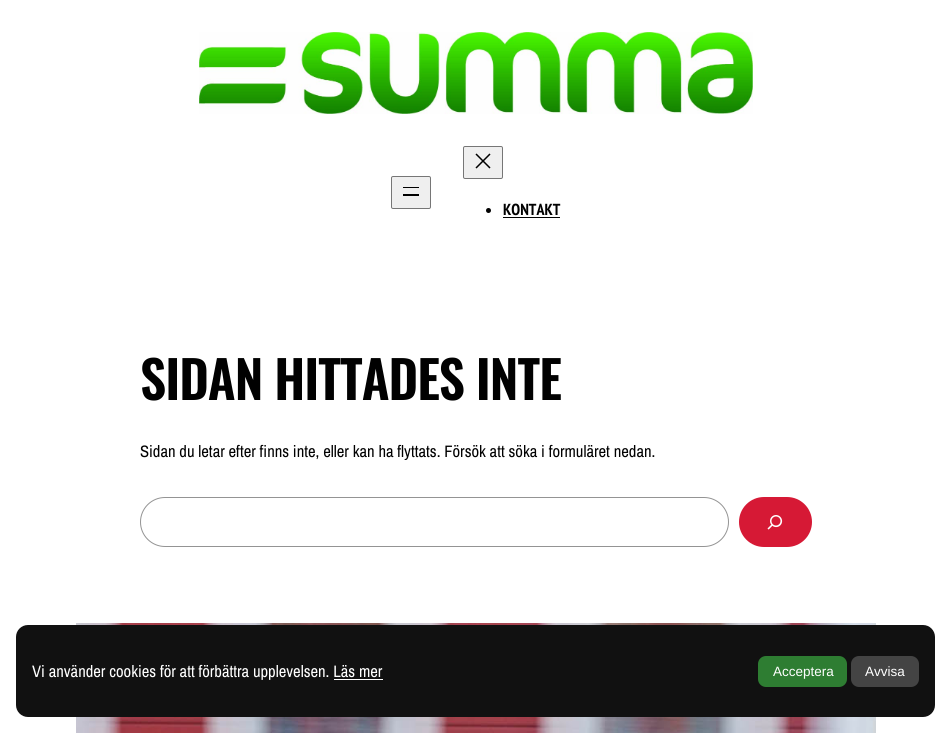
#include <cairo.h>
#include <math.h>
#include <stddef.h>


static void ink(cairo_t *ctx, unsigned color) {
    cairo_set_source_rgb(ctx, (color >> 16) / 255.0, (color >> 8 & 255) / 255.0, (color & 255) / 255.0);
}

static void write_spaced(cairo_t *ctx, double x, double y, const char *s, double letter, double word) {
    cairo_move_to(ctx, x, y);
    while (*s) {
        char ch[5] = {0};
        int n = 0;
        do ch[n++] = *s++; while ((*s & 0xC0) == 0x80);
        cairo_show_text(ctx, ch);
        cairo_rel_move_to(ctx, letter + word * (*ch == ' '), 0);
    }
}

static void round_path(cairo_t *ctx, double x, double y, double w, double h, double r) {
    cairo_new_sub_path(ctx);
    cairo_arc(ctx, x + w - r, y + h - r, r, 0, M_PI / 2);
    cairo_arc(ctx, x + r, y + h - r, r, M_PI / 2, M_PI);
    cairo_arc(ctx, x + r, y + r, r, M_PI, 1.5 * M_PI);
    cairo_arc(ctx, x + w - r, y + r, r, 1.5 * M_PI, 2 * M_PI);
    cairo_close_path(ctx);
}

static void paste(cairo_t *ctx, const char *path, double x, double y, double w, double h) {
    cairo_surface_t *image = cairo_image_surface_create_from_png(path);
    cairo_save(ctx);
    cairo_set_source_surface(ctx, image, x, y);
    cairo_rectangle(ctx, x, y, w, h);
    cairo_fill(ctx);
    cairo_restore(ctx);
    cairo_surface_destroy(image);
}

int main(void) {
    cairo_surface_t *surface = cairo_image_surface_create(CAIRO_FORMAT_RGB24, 951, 733);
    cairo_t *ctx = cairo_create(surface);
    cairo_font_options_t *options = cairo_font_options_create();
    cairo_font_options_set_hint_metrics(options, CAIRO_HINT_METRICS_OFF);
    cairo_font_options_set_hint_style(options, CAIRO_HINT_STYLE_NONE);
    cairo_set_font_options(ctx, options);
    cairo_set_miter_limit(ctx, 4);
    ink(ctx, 0xFFFFFF);
    cairo_paint(ctx);
    paste(ctx, "media/1.png", 199, 32, 554, 82);
    ink(ctx, 0xEFEFEF);
    round_path(ctx, 391.5, 176.5, 39, 32, 1.5);
    cairo_fill_preserve(ctx);
    ink(ctx, 0x767676);
    cairo_set_line_width(ctx, 1);
    cairo_stroke(ctx);
    ink(ctx, 0x000000);
    cairo_rectangle(ctx, 403, 187, 16, 1);
    cairo_fill(ctx);
    cairo_rectangle(ctx, 403, 194, 16, 2);
    cairo_fill(ctx);
    ink(ctx, 0xEFEFEF);
    round_path(ctx, 463.5, 146.5, 39, 32, 1.5);
    cairo_fill_preserve(ctx);
    ink(ctx, 0x767676);
    cairo_stroke(ctx);
    paste(ctx, "media/2.png", 475, 153, 16, 16);
    ink(ctx, 0x010101);
    cairo_arc(ctx, 488.5, 210.5, 2.5, 0, 2 * M_PI);
    cairo_fill(ctx);
    cairo_select_font_face(ctx, "PT Sans Narrow", CAIRO_FONT_SLANT_NORMAL, CAIRO_FONT_WEIGHT_BOLD);
    cairo_set_font_size(ctx, 16);
    cairo_move_to(ctx, 503, 215);
    cairo_show_text(ctx, "KONTAKT");
    cairo_rectangle(ctx, 503, 217, 57, 1);
    cairo_fill(ctx);
    cairo_select_font_face(ctx, "Oswald SemiBold", CAIRO_FONT_SLANT_NORMAL, CAIRO_FONT_WEIGHT_NORMAL);
    cairo_set_font_size(ctx, 51.75);
    write_spaced(ctx, 140, 400, "SIDAN HITTADES INTE", -1, 0);
    cairo_select_font_face(ctx, "Archivo Narrow", CAIRO_FONT_SLANT_NORMAL, CAIRO_FONT_WEIGHT_NORMAL);
    cairo_set_font_size(ctx, 16.6);
    cairo_move_to(ctx, 140, 457);
    cairo_show_text(ctx, "Sidan du letar efter finns inte, eller kan ha flyttats. Försök att söka i formuläret nedan.");
    round_path(ctx, 140.5, 497.5, 588, 49, 24.5);
    ink(ctx, 0x949494);
    cairo_stroke(ctx);
    ink(ctx, 0xD61935);
    round_path(ctx, 739, 497, 73, 50, 25);
    cairo_fill(ctx);
    paste(ctx, "media/3.png", 767, 515, 16, 15);
    paste(ctx, "media/4.png", 76, 623, 800, 110);
    ink(ctx, 0x111111);
    round_path(ctx, 16, 625, 919, 92, 12);
    cairo_fill(ctx);
    ink(ctx, 0xFFFFFF);
    cairo_move_to(ctx, 32, 677);
    cairo_show_text(ctx, "Vi använder cookies för att förbättra upplevelsen. Läs mer");
    cairo_rectangle(ctx, 334, 679, 49, 1);
    cairo_fill(ctx);
    ink(ctx, 0x2E7D32);
    round_path(ctx, 758, 656, 89, 31, 8);
    cairo_fill(ctx);
    cairo_select_font_face(ctx, "Liberation Sans", CAIRO_FONT_SLANT_NORMAL, CAIRO_FONT_WEIGHT_NORMAL);
    cairo_set_font_size(ctx, 13.5);
    ink(ctx, 0xFFFFFF);
    cairo_move_to(ctx, 773, 676);
    cairo_show_text(ctx, "Acceptera");
    ink(ctx, 0x444444);
    round_path(ctx, 851, 656, 68, 31, 8);
    cairo_fill(ctx);
    ink(ctx, 0xFFFFFF);
    cairo_move_to(ctx, 865, 676);
    cairo_show_text(ctx, "Avvisa");
    cairo_surface_write_to_png(surface, "image.png");
    cairo_font_options_destroy(options);
    cairo_destroy(ctx);
    cairo_surface_destroy(surface);
    return 0;
}
